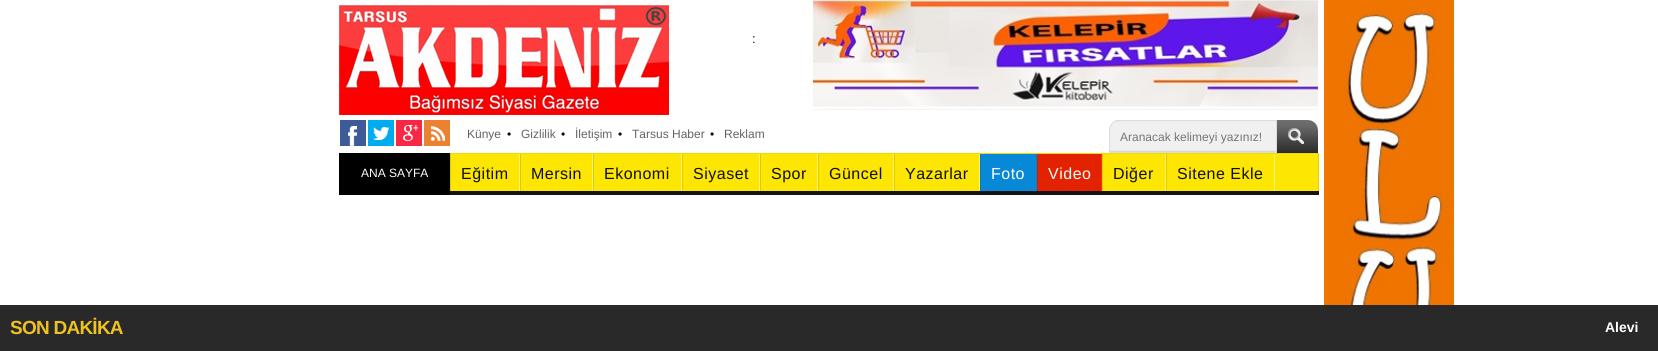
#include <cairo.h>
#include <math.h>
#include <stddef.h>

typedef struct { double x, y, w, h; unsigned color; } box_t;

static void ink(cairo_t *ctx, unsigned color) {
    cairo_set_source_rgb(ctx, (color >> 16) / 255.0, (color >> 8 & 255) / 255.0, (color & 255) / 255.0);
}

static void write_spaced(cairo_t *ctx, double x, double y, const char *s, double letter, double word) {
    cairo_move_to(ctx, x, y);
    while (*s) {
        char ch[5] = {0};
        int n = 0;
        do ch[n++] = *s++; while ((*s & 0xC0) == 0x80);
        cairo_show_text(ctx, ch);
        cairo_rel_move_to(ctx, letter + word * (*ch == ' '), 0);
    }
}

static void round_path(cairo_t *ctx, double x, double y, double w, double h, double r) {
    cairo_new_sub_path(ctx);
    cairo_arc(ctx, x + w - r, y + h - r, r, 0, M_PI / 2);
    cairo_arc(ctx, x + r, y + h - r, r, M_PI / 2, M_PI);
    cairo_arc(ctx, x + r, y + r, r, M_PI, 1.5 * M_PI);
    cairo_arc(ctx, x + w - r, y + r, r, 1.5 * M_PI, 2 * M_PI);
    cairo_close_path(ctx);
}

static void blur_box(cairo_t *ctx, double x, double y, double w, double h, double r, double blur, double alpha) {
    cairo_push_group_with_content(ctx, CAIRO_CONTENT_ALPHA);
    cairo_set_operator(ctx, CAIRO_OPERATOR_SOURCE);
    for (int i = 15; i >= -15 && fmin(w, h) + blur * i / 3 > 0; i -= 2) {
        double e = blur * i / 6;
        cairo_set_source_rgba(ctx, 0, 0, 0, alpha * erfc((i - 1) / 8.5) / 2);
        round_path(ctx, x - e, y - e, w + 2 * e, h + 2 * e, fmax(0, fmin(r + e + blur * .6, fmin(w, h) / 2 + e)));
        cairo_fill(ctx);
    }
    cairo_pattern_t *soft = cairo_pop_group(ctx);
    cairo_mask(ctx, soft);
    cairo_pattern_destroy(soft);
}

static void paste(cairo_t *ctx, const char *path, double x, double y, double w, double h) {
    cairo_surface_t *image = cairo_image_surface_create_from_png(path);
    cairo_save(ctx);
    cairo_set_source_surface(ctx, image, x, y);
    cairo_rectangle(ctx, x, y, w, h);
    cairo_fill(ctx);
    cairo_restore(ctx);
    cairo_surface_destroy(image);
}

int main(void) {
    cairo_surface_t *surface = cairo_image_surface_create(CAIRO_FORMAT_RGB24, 1658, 351);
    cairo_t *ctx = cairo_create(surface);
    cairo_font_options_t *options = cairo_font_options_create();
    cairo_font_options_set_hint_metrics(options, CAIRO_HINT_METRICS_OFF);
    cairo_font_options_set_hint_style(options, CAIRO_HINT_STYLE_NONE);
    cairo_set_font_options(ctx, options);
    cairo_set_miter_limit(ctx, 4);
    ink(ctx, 0xFFFFFF);
    cairo_paint(ctx);
    paste(ctx, "media/1.png", 339, 5, 330, 110);
    cairo_select_font_face(ctx, "Liberation Sans", CAIRO_FONT_SLANT_NORMAL, CAIRO_FONT_WEIGHT_NORMAL);
    cairo_set_font_size(ctx, 13);
    ink(ctx, 0x0F0F0F);
    cairo_move_to(ctx, 752, 43);
    cairo_show_text(ctx, ":");
    paste(ctx, "media/2.png", 813, 0, 505, 110);
    paste(ctx, "media/3.png", 340, 120, 26, 26);
    paste(ctx, "media/4.png", 368, 120, 26, 26);
    paste(ctx, "media/5.png", 396, 120, 26, 26);
    paste(ctx, "media/6.png", 424, 120, 26, 26);
    cairo_set_font_size(ctx, 12);
    ink(ctx, 0x646464);
    cairo_move_to(ctx, 467, 138);
    cairo_show_text(ctx, "Künye");
    ink(ctx, 0x0F0F0F);
    cairo_move_to(ctx, 507, 138);
    cairo_show_text(ctx, "•");
    ink(ctx, 0x646464);
    cairo_move_to(ctx, 521, 138);
    cairo_show_text(ctx, "Gizlilik");
    ink(ctx, 0x0F0F0F);
    cairo_move_to(ctx, 561, 138);
    cairo_show_text(ctx, "•");
    ink(ctx, 0x646464);
    cairo_move_to(ctx, 575, 138);
    cairo_show_text(ctx, "İletişim");
    ink(ctx, 0x0F0F0F);
    cairo_move_to(ctx, 618, 138);
    cairo_show_text(ctx, "•");
    ink(ctx, 0x646464);
    cairo_move_to(ctx, 632, 138);
    cairo_show_text(ctx, "Tarsus Haber");
    ink(ctx, 0x0F0F0F);
    cairo_move_to(ctx, 710, 138);
    cairo_show_text(ctx, "•");
    ink(ctx, 0x646464);
    cairo_move_to(ctx, 724, 138);
    cairo_show_text(ctx, "Reklam");
    paste(ctx, "media/7.png", 1109, 120, 167, 32);
    cairo_new_path(ctx);
    cairo_move_to(ctx, 1119, 120.5);
    cairo_line_to(ctx, 1276.5, 120.5);
    cairo_line_to(ctx, 1276.5, 152.5);
    cairo_line_to(ctx, 1109.5, 152.5);
    cairo_line_to(ctx, 1109.5, 130);
    cairo_curve_to(ctx, 1109.5, 125, 1114, 120.5, 1119, 120.5);
    cairo_close_path(ctx);
    ink(ctx, 0xDCDCDC);
    cairo_set_line_width(ctx, 1);
    cairo_stroke(ctx);
    ink(ctx, 0x757575);
    cairo_move_to(ctx, 1120, 141);
    cairo_show_text(ctx, "Aranacak kelimeyi yazınız!");
    ink(ctx, 0xEFEFEF);
    cairo_new_path(ctx);
    cairo_move_to(ctx, 1277, 120);
    cairo_line_to(ctx, 1308, 120);
    cairo_curve_to(ctx, 1313.5, 120, 1318, 124.5, 1318, 130);
    cairo_line_to(ctx, 1318, 153);
    cairo_line_to(ctx, 1277, 153);
    cairo_close_path(ctx);
    cairo_fill(ctx);
    paste(ctx, "media/8.png", 1277, 120, 41, 33);
    paste(ctx, "media/9.png", 1288, 128, 16, 16);
    ink(ctx, 0x000000);
    cairo_rectangle(ctx, 339, 153, 111, 42);
    cairo_fill(ctx);
    ink(ctx, 0xFFFFFF);
    cairo_move_to(ctx, 361, 177);
    cairo_show_text(ctx, "ANA SAYFA");
    {
        static const box_t items[] = {
            {450, 191, 869, 4, 0x131313},
            {451, 154, 867, 37, 0xFCE602},
            {450, 153, 869, 1, 0xF0DB00},
            {1318, 153, 1, 38, 0xE4D000},
            {519, 154, 1, 37, 0xFFF376},
            {450, 154, 1, 37, 0xDFCC00},
        };
        for (size_t i = 0; i < sizeof items / sizeof *items; i++) {
            ink(ctx, items[i].color);
            cairo_rectangle(ctx, items[i].x, items[i].y, items[i].w, items[i].h);
            cairo_fill(ctx);
        }
    }
    cairo_set_font_size(ctx, 16);
    ink(ctx, 0x0F0F0F);
    write_spaced(ctx, 461, 179, "Eğitim", 0.5, 0);
    ink(ctx, 0xFFF376);
    cairo_rectangle(ctx, 592, 154, 1, 37);
    cairo_fill(ctx);
    ink(ctx, 0xDFCC00);
    cairo_rectangle(ctx, 520, 154, 1, 37);
    cairo_fill(ctx);
    ink(ctx, 0x0F0F0F);
    write_spaced(ctx, 531, 179, "Mersin", 0.5, 0);
    ink(ctx, 0xFFF376);
    cairo_rectangle(ctx, 681, 154, 1, 37);
    cairo_fill(ctx);
    ink(ctx, 0xDFCC00);
    cairo_rectangle(ctx, 593, 154, 1, 37);
    cairo_fill(ctx);
    ink(ctx, 0x0F0F0F);
    write_spaced(ctx, 604, 179, "Ekonomi", 0.5, 0);
    ink(ctx, 0xFFF376);
    cairo_rectangle(ctx, 759, 154, 1, 37);
    cairo_fill(ctx);
    ink(ctx, 0xDFCC00);
    cairo_rectangle(ctx, 682, 154, 1, 37);
    cairo_fill(ctx);
    ink(ctx, 0x0F0F0F);
    write_spaced(ctx, 693, 179, "Siyaset", 0.5, 0);
    ink(ctx, 0xFFF376);
    cairo_rectangle(ctx, 817, 154, 1, 37);
    cairo_fill(ctx);
    ink(ctx, 0xDFCC00);
    cairo_rectangle(ctx, 760, 154, 1, 37);
    cairo_fill(ctx);
    ink(ctx, 0x0F0F0F);
    write_spaced(ctx, 771, 179, "Spor", 0.5, 0);
    ink(ctx, 0xFFF376);
    cairo_rectangle(ctx, 893, 154, 1, 37);
    cairo_fill(ctx);
    ink(ctx, 0xDFCC00);
    cairo_rectangle(ctx, 818, 154, 1, 37);
    cairo_fill(ctx);
    ink(ctx, 0x0F0F0F);
    write_spaced(ctx, 829, 179, "Güncel", 0.5, 0);
    ink(ctx, 0xFFF376);
    cairo_rectangle(ctx, 979, 154, 1, 37);
    cairo_fill(ctx);
    ink(ctx, 0xDFCC00);
    cairo_rectangle(ctx, 894, 154, 1, 37);
    cairo_fill(ctx);
    ink(ctx, 0x0F0F0F);
    write_spaced(ctx, 905, 179, "Yazarlar", 0.5, 0);
    {
        static const box_t items[] = {
            {981, 154, 55, 37, 0x0789D8},
            {1036, 154, 1, 37, 0x0383D0},
            {980, 154, 1, 37, 0x017BC5},
        };
        for (size_t i = 0; i < sizeof items / sizeof *items; i++) {
            ink(ctx, items[i].color);
            cairo_rectangle(ctx, items[i].x, items[i].y, items[i].w, items[i].h);
            cairo_fill(ctx);
        }
    }
    ink(ctx, 0xFFFFFF);
    write_spaced(ctx, 991, 179, "Foto", 0.5, 0);
    {
        static const box_t items[] = {
            {1038, 154, 63, 37, 0xE22200},
            {1101, 154, 1, 37, 0xF53310},
            {1037, 154, 1, 37, 0xC82407},
        };
        for (size_t i = 0; i < sizeof items / sizeof *items; i++) {
            ink(ctx, items[i].color);
            cairo_rectangle(ctx, items[i].x, items[i].y, items[i].w, items[i].h);
            cairo_fill(ctx);
        }
    }
    ink(ctx, 0xFFFFFF);
    write_spaced(ctx, 1048, 179, "Video", 0.5, 0);
    ink(ctx, 0xFFF376);
    cairo_rectangle(ctx, 1165, 154, 1, 37);
    cairo_fill(ctx);
    ink(ctx, 0xDFCC00);
    cairo_rectangle(ctx, 1102, 154, 1, 37);
    cairo_fill(ctx);
    ink(ctx, 0x0F0F0F);
    write_spaced(ctx, 1113, 179, "Diğer", 0.5, 0);
    ink(ctx, 0xFFF376);
    cairo_rectangle(ctx, 1274, 154, 1, 37);
    cairo_fill(ctx);
    ink(ctx, 0xDFCC00);
    cairo_rectangle(ctx, 1166, 154, 1, 37);
    cairo_fill(ctx);
    ink(ctx, 0x0F0F0F);
    write_spaced(ctx, 1177, 179, "Sitene Ekle", 0.5, 0);
    paste(ctx, "media/10.png", 1324, 0, 130, 305);
    ink(ctx, 0x292929);
    cairo_rectangle(ctx, 0, 305, 1658, 46);
    cairo_fill(ctx);
    cairo_select_font_face(ctx, "Liberation Sans", CAIRO_FONT_SLANT_NORMAL, CAIRO_FONT_WEIGHT_BOLD);
    cairo_set_font_size(ctx, 19);
    ink(ctx, 0xEFC220);
    write_spaced(ctx, 10, 334, "SON DAKİKA", -0.75, 0);
    cairo_save(ctx);
    cairo_rectangle(ctx, 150, 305, 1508, 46);
    cairo_clip(ctx);
    ink(ctx, 0x292929);
    blur_box(ctx, 1623, 265, 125, 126, 0, 30, 1);
    cairo_restore(ctx);
    cairo_set_font_size(ctx, 14);
    ink(ctx, 0xFFFFFF);
    cairo_move_to(ctx, 1605, 332);
    cairo_show_text(ctx, "Alevi");
    cairo_surface_write_to_png(surface, "image.png");
    cairo_font_options_destroy(options);
    cairo_destroy(ctx);
    cairo_surface_destroy(surface);
    return 0;
}
